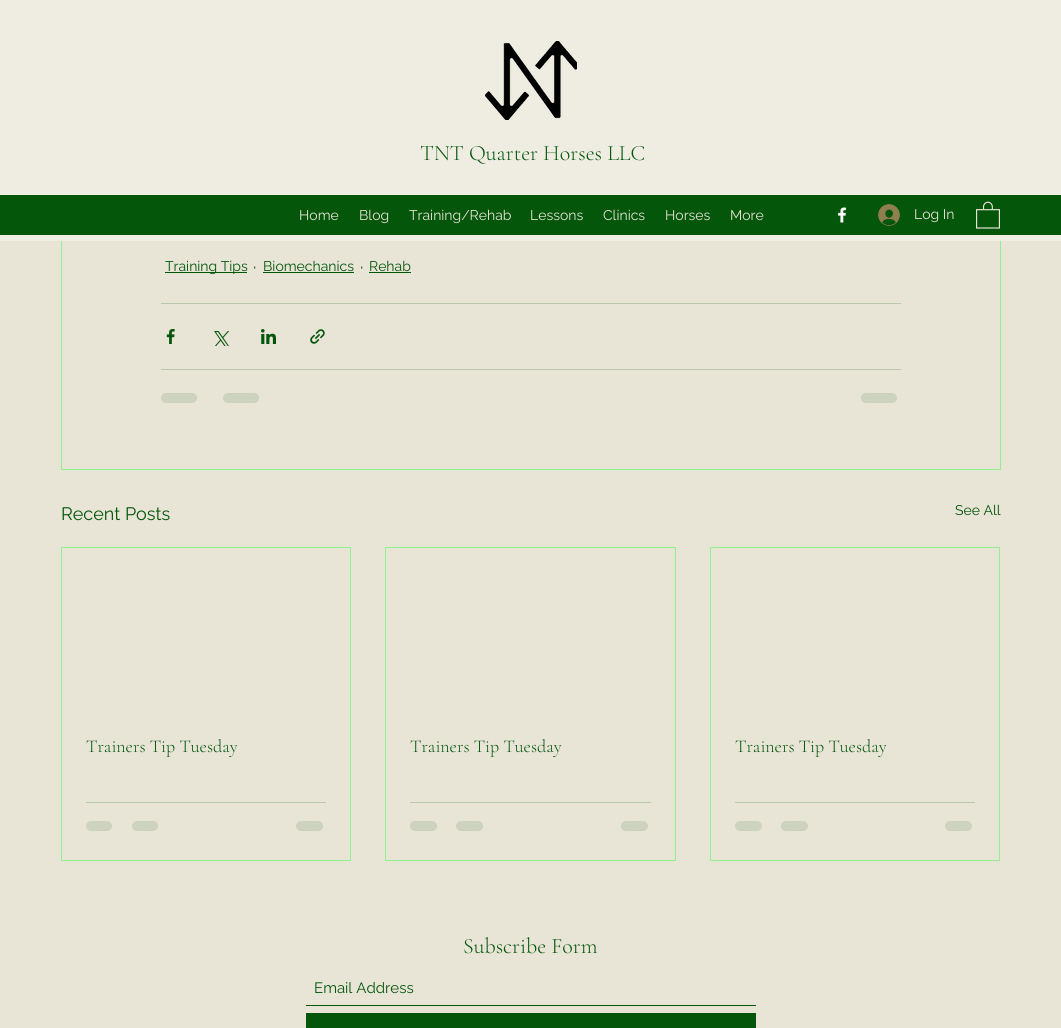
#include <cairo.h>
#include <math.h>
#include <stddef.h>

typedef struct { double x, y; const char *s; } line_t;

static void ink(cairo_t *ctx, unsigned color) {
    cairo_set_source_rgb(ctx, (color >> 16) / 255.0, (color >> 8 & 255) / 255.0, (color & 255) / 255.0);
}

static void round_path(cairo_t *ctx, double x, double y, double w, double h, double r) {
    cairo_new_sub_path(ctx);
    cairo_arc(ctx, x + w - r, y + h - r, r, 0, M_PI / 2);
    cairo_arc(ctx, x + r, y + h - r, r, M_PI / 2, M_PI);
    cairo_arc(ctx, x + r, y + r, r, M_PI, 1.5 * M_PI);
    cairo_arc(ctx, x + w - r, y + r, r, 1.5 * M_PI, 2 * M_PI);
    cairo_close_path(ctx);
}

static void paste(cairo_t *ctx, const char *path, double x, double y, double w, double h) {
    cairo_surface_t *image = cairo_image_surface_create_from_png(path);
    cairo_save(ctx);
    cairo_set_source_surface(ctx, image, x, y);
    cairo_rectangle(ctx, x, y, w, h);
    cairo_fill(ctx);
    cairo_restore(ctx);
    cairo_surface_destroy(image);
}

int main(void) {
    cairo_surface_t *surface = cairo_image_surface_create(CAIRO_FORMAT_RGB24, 1061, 1028);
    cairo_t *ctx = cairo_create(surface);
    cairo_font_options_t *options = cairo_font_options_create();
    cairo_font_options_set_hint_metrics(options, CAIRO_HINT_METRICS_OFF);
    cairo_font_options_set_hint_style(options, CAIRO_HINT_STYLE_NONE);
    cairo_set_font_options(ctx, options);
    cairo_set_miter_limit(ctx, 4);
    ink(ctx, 0xE8E4D6);
    cairo_paint(ctx);
    cairo_rectangle(ctx, 61.5, -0.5, 939, 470);
    ink(ctx, 0x8CF390);
    cairo_set_line_width(ctx, 1);
    cairo_stroke(ctx);
    ink(ctx, 0xEFECE2);
    cairo_rectangle(ctx, 0, 0, 1061, 241);
    cairo_fill(ctx);
    paste(ctx, "media/1.png", 485, 41, 92, 79);
    cairo_select_font_face(ctx, "Cormorant Garamond Light", CAIRO_FONT_SLANT_NORMAL, CAIRO_FONT_WEIGHT_NORMAL);
    cairo_set_font_size(ctx, 22);
    ink(ctx, 0x04560B);
    cairo_move_to(ctx, 420, 160);
    cairo_show_text(ctx, "TNT Quarter Horses LLC");
    cairo_rectangle(ctx, 0, 195, 1061, 40);
    cairo_fill(ctx);
    cairo_select_font_face(ctx, "Raleway", CAIRO_FONT_SLANT_NORMAL, CAIRO_FONT_WEIGHT_NORMAL);
    cairo_set_font_size(ctx, 14);
    ink(ctx, 0xE8E4D6);
    {
        static const line_t items[] = {
            {299, 220, "Home"},
            {359, 220, "Blog"},
            {409, 220, "Training/Rehab"},
            {530, 220, "Lessons"},
            {603, 220, "Clinics"},
            {665, 220, "Horses"},
            {730, 220, "More"},
        };
        for (size_t i = 0; i < sizeof items / sizeof *items; i++) {
            cairo_move_to(ctx, items[i].x, items[i].y);
            cairo_show_text(ctx, items[i].s);
        }
    }
    paste(ctx, "media/2.png", 838, 207, 9, 16);
    paste(ctx, "media/3.png", 878, 204, 22, 22);
    cairo_move_to(ctx, 914, 219);
    cairo_show_text(ctx, "Log In");
    paste(ctx, "media/4.png", 976, 201, 24, 28);
    ink(ctx, 0x04560B);
    cairo_rectangle(ctx, 165, 272, 82, 1);
    cairo_fill(ctx);
    cairo_move_to(ctx, 165, 271);
    cairo_show_text(ctx, "Training Tips");
    cairo_set_font_size(ctx, 18);
    cairo_move_to(ctx, 253, 273);
    cairo_show_text(ctx, "·");
    cairo_set_font_size(ctx, 14);
    cairo_move_to(ctx, 263, 271);
    cairo_show_text(ctx, "Biomechanics");
    cairo_rectangle(ctx, 263, 272, 91, 1);
    cairo_fill(ctx);
    cairo_set_font_size(ctx, 18);
    cairo_move_to(ctx, 360, 273);
    cairo_show_text(ctx, "·");
    cairo_set_font_size(ctx, 14);
    cairo_move_to(ctx, 369, 271);
    cairo_show_text(ctx, "Rehab");
    cairo_rectangle(ctx, 369, 272, 42, 1);
    cairo_fill(ctx);
    ink(ctx, 0xBAC8AD);
    cairo_rectangle(ctx, 161, 303, 740, 1);
    cairo_fill(ctx);
    paste(ctx, "media/5.png", 166, 329, 9, 15);
    paste(ctx, "media/6.png", 214, 331, 15, 15);
    paste(ctx, "media/7.png", 261, 329, 15, 15);
    paste(ctx, "media/8.png", 310, 329, 15, 15);
    cairo_rectangle(ctx, 161, 369, 740, 1);
    cairo_fill(ctx);
    ink(ctx, 0xCDD3BE);
    round_path(ctx, 161, 393, 36, 10, 5);
    cairo_fill(ctx);
    round_path(ctx, 223, 393, 36, 10, 5);
    cairo_fill(ctx);
    round_path(ctx, 861, 393, 36, 10, 5);
    cairo_fill(ctx);
    cairo_set_font_size(ctx, 18);
    ink(ctx, 0x04560B);
    cairo_move_to(ctx, 61, 520);
    cairo_show_text(ctx, "Recent Posts");
    cairo_set_font_size(ctx, 14);
    cairo_move_to(ctx, 955, 515);
    cairo_show_text(ctx, "See All");
    cairo_rectangle(ctx, 61.5, 547.5, 289, 313);
    ink(ctx, 0x8CF390);
    cairo_stroke(ctx);
    cairo_select_font_face(ctx, "Cormorant Garamond Light", CAIRO_FONT_SLANT_NORMAL, CAIRO_FONT_WEIGHT_NORMAL);
    cairo_set_font_size(ctx, 18);
    ink(ctx, 0x04560B);
    cairo_move_to(ctx, 86, 752);
    cairo_show_text(ctx, "Trainers Tip Tuesday");
    ink(ctx, 0xBAC8AD);
    cairo_rectangle(ctx, 86, 802, 240, 1);
    cairo_fill(ctx);
    ink(ctx, 0xCDD3BE);
    round_path(ctx, 86, 821, 26, 10, 5);
    cairo_fill(ctx);
    round_path(ctx, 132, 821, 26, 10, 5);
    cairo_fill(ctx);
    round_path(ctx, 296, 821, 27, 10, 5);
    cairo_fill(ctx);
    cairo_rectangle(ctx, 385.5, 547.5, 290, 313);
    ink(ctx, 0x8CF390);
    cairo_stroke(ctx);
    ink(ctx, 0x04560B);
    cairo_move_to(ctx, 410, 752);
    cairo_show_text(ctx, "Trainers Tip Tuesday");
    ink(ctx, 0xBAC8AD);
    cairo_rectangle(ctx, 410, 802, 241, 1);
    cairo_fill(ctx);
    ink(ctx, 0xCDD3BE);
    round_path(ctx, 410, 821, 27, 10, 5);
    cairo_fill(ctx);
    round_path(ctx, 456, 821, 27, 10, 5);
    cairo_fill(ctx);
    round_path(ctx, 621, 821, 27, 10, 5);
    cairo_fill(ctx);
    cairo_rectangle(ctx, 710.5, 547.5, 289, 313);
    ink(ctx, 0x8CF390);
    cairo_stroke(ctx);
    ink(ctx, 0x04560B);
    cairo_move_to(ctx, 735, 752);
    cairo_show_text(ctx, "Trainers Tip Tuesday");
    ink(ctx, 0xBAC8AD);
    cairo_rectangle(ctx, 735, 802, 240, 1);
    cairo_fill(ctx);
    ink(ctx, 0xCDD3BE);
    round_path(ctx, 735, 821, 27, 10, 5);
    cairo_fill(ctx);
    round_path(ctx, 781, 821, 27, 10, 5);
    cairo_fill(ctx);
    round_path(ctx, 945, 821, 27, 10, 5);
    cairo_fill(ctx);
    cairo_set_font_size(ctx, 22);
    ink(ctx, 0x04560B);
    cairo_move_to(ctx, 463, 953);
    cairo_show_text(ctx, "Subscribe Form");
    cairo_rectangle(ctx, 306, 1005, 450, 1);
    cairo_fill(ctx);
    cairo_select_font_face(ctx, "Raleway", CAIRO_FONT_SLANT_NORMAL, CAIRO_FONT_WEIGHT_NORMAL);
    cairo_set_font_size(ctx, 15);
    cairo_move_to(ctx, 314, 993);
    cairo_show_text(ctx, "Email Address");
    cairo_rectangle(ctx, 306, 1013, 450, 15);
    cairo_fill(ctx);
    cairo_surface_write_to_png(surface, "image.png");
    cairo_font_options_destroy(options);
    cairo_destroy(ctx);
    cairo_surface_destroy(surface);
    return 0;
}
